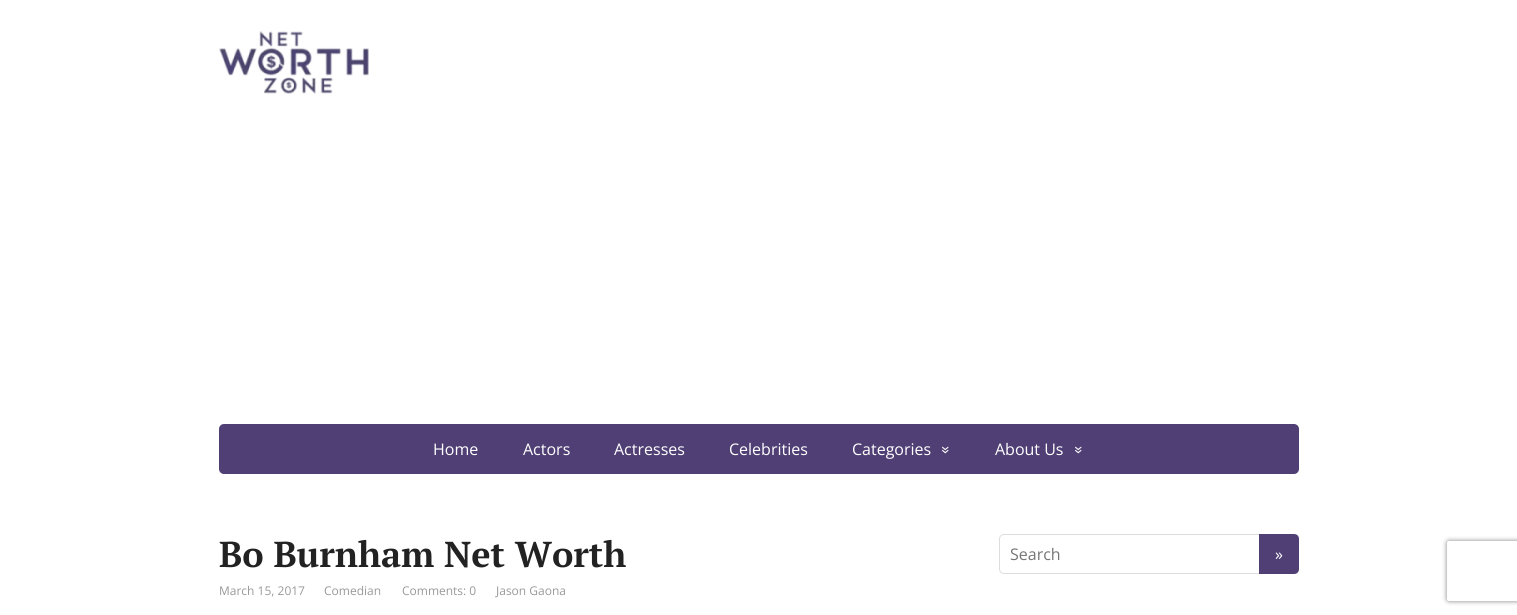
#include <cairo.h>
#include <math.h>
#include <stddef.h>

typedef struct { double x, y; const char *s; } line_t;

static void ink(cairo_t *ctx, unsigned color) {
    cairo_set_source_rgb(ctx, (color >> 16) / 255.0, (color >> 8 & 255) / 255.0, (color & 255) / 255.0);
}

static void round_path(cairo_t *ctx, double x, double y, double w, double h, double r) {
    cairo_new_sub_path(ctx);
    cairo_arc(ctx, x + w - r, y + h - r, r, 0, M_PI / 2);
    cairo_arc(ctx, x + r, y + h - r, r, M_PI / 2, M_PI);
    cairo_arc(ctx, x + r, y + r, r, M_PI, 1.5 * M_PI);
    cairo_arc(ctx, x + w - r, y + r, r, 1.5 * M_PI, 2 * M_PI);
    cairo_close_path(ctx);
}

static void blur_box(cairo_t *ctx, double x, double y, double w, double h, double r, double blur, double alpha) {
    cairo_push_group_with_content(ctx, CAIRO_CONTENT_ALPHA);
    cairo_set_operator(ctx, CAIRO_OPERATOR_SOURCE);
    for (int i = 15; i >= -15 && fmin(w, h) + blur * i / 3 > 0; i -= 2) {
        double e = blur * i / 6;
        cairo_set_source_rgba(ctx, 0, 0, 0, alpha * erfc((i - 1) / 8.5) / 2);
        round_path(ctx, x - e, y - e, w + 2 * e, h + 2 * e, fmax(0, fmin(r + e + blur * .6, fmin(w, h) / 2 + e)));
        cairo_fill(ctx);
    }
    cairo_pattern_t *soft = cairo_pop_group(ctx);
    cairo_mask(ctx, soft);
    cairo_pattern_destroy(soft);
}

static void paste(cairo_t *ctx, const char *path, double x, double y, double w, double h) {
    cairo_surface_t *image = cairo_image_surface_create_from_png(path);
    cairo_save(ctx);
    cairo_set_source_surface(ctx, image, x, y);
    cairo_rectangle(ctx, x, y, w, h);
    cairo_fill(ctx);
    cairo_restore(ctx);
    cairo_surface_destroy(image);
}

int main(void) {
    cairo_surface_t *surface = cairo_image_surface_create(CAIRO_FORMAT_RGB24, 1517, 615);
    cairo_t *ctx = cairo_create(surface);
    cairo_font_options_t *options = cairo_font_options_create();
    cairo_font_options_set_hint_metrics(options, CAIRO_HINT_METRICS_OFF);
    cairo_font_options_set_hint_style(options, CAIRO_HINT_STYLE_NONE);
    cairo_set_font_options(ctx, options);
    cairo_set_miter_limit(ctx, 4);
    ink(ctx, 0xFFFFFF);
    cairo_paint(ctx);
    paste(ctx, "media/1.png", 219, 31, 150, 63);
    ink(ctx, 0x503F75);
    round_path(ctx, 219, 424, 1080, 50, 5);
    cairo_fill(ctx);
    cairo_select_font_face(ctx, "Open Sans", CAIRO_FONT_SLANT_NORMAL, CAIRO_FONT_WEIGHT_NORMAL);
    cairo_set_font_size(ctx, 16);
    ink(ctx, 0xFFFFFF);
    {
        static const line_t items[] = {
            {433, 455, "Home"},
            {523, 455, "Actors"},
            {614, 455, "Actresses"},
            {729, 455, "Celebrities"},
            {852, 455, "Categories"},
        };
        for (size_t i = 0; i < sizeof items / sizeof *items; i++) {
            cairo_move_to(ctx, items[i].x, items[i].y);
            cairo_show_text(ctx, items[i].s);
        }
    }
    cairo_save(ctx);
    cairo_translate(ctx, 941, 446);
    cairo_rotate(ctx, 90 * M_PI / 180);
    cairo_move_to(ctx, 0, 0);
    cairo_show_text(ctx, "»");
    cairo_restore(ctx);
    cairo_move_to(ctx, 995, 455);
    cairo_show_text(ctx, "About Us");
    cairo_save(ctx);
    cairo_translate(ctx, 1074, 446);
    cairo_rotate(ctx, 90 * M_PI / 180);
    cairo_move_to(ctx, 0, 0);
    cairo_show_text(ctx, "»");
    cairo_restore(ctx);
    cairo_select_font_face(ctx, "PT Serif", CAIRO_FONT_SLANT_NORMAL, CAIRO_FONT_WEIGHT_BOLD);
    cairo_set_font_size(ctx, 36);
    ink(ctx, 0x222222);
    cairo_move_to(ctx, 219, 567);
    cairo_show_text(ctx, "Bo Burnham Net Worth");
    cairo_select_font_face(ctx, "Open Sans", CAIRO_FONT_SLANT_NORMAL, CAIRO_FONT_WEIGHT_NORMAL);
    cairo_set_font_size(ctx, 12);
    ink(ctx, 0x999999);
    {
        static const line_t items[] = {
            {219, 595, "March 15, 2017"},
            {324, 595, "Comedian"},
            {402, 595, "Comments: 0"},
            {496, 595, "Jason Gaona"},
        };
        for (size_t i = 0; i < sizeof items / sizeof *items; i++) {
            cairo_move_to(ctx, items[i].x, items[i].y);
            cairo_show_text(ctx, items[i].s);
        }
    }
    round_path(ctx, 999.5, 534.5, 291, 39, 4.5);
    ink(ctx, 0xDDDDDD);
    cairo_set_line_width(ctx, 1);
    cairo_stroke(ctx);
    cairo_set_font_size(ctx, 16);
    ink(ctx, 0x757575);
    cairo_move_to(ctx, 1010, 560);
    cairo_show_text(ctx, "Search");
    ink(ctx, 0x503F75);
    cairo_new_path(ctx);
    cairo_move_to(ctx, 1259, 534);
    cairo_line_to(ctx, 1294, 534);
    cairo_curve_to(ctx, 1297, 534, 1299, 536, 1299, 539);
    cairo_line_to(ctx, 1299, 569);
    cairo_curve_to(ctx, 1299, 572, 1297, 574, 1294, 574);
    cairo_line_to(ctx, 1259, 574);
    cairo_close_path(ctx);
    cairo_fill(ctx);
    ink(ctx, 0xFFFFFF);
    cairo_move_to(ctx, 1275, 560);
    cairo_show_text(ctx, "»");
    cairo_save(ctx);
    cairo_set_fill_rule(ctx, CAIRO_FILL_RULE_EVEN_ODD);
    cairo_new_path(ctx);
    cairo_move_to(ctx, 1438, 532);
    cairo_line_to(ctx, 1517, 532);
    cairo_line_to(ctx, 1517, 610);
    cairo_line_to(ctx, 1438, 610);
    cairo_close_path(ctx);
    cairo_move_to(ctx, 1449, 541);
    cairo_line_to(ctx, 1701, 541);
    cairo_curve_to(ctx, 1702, 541, 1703, 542, 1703, 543);
    cairo_line_to(ctx, 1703, 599);
    cairo_curve_to(ctx, 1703, 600, 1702, 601, 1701, 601);
    cairo_line_to(ctx, 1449, 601);
    cairo_curve_to(ctx, 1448, 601, 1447, 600, 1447, 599);
    cairo_line_to(ctx, 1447, 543);
    cairo_curve_to(ctx, 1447, 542, 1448, 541, 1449, 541);
    cairo_close_path(ctx);
    cairo_clip(ctx);
    ink(ctx, 0x808080);
    blur_box(ctx, 1447, 541, 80, 60, 2, 2.5, 1);
    cairo_restore(ctx);
    cairo_surface_write_to_png(surface, "image.png");
    cairo_font_options_destroy(options);
    cairo_destroy(ctx);
    cairo_surface_destroy(surface);
    return 0;
}
